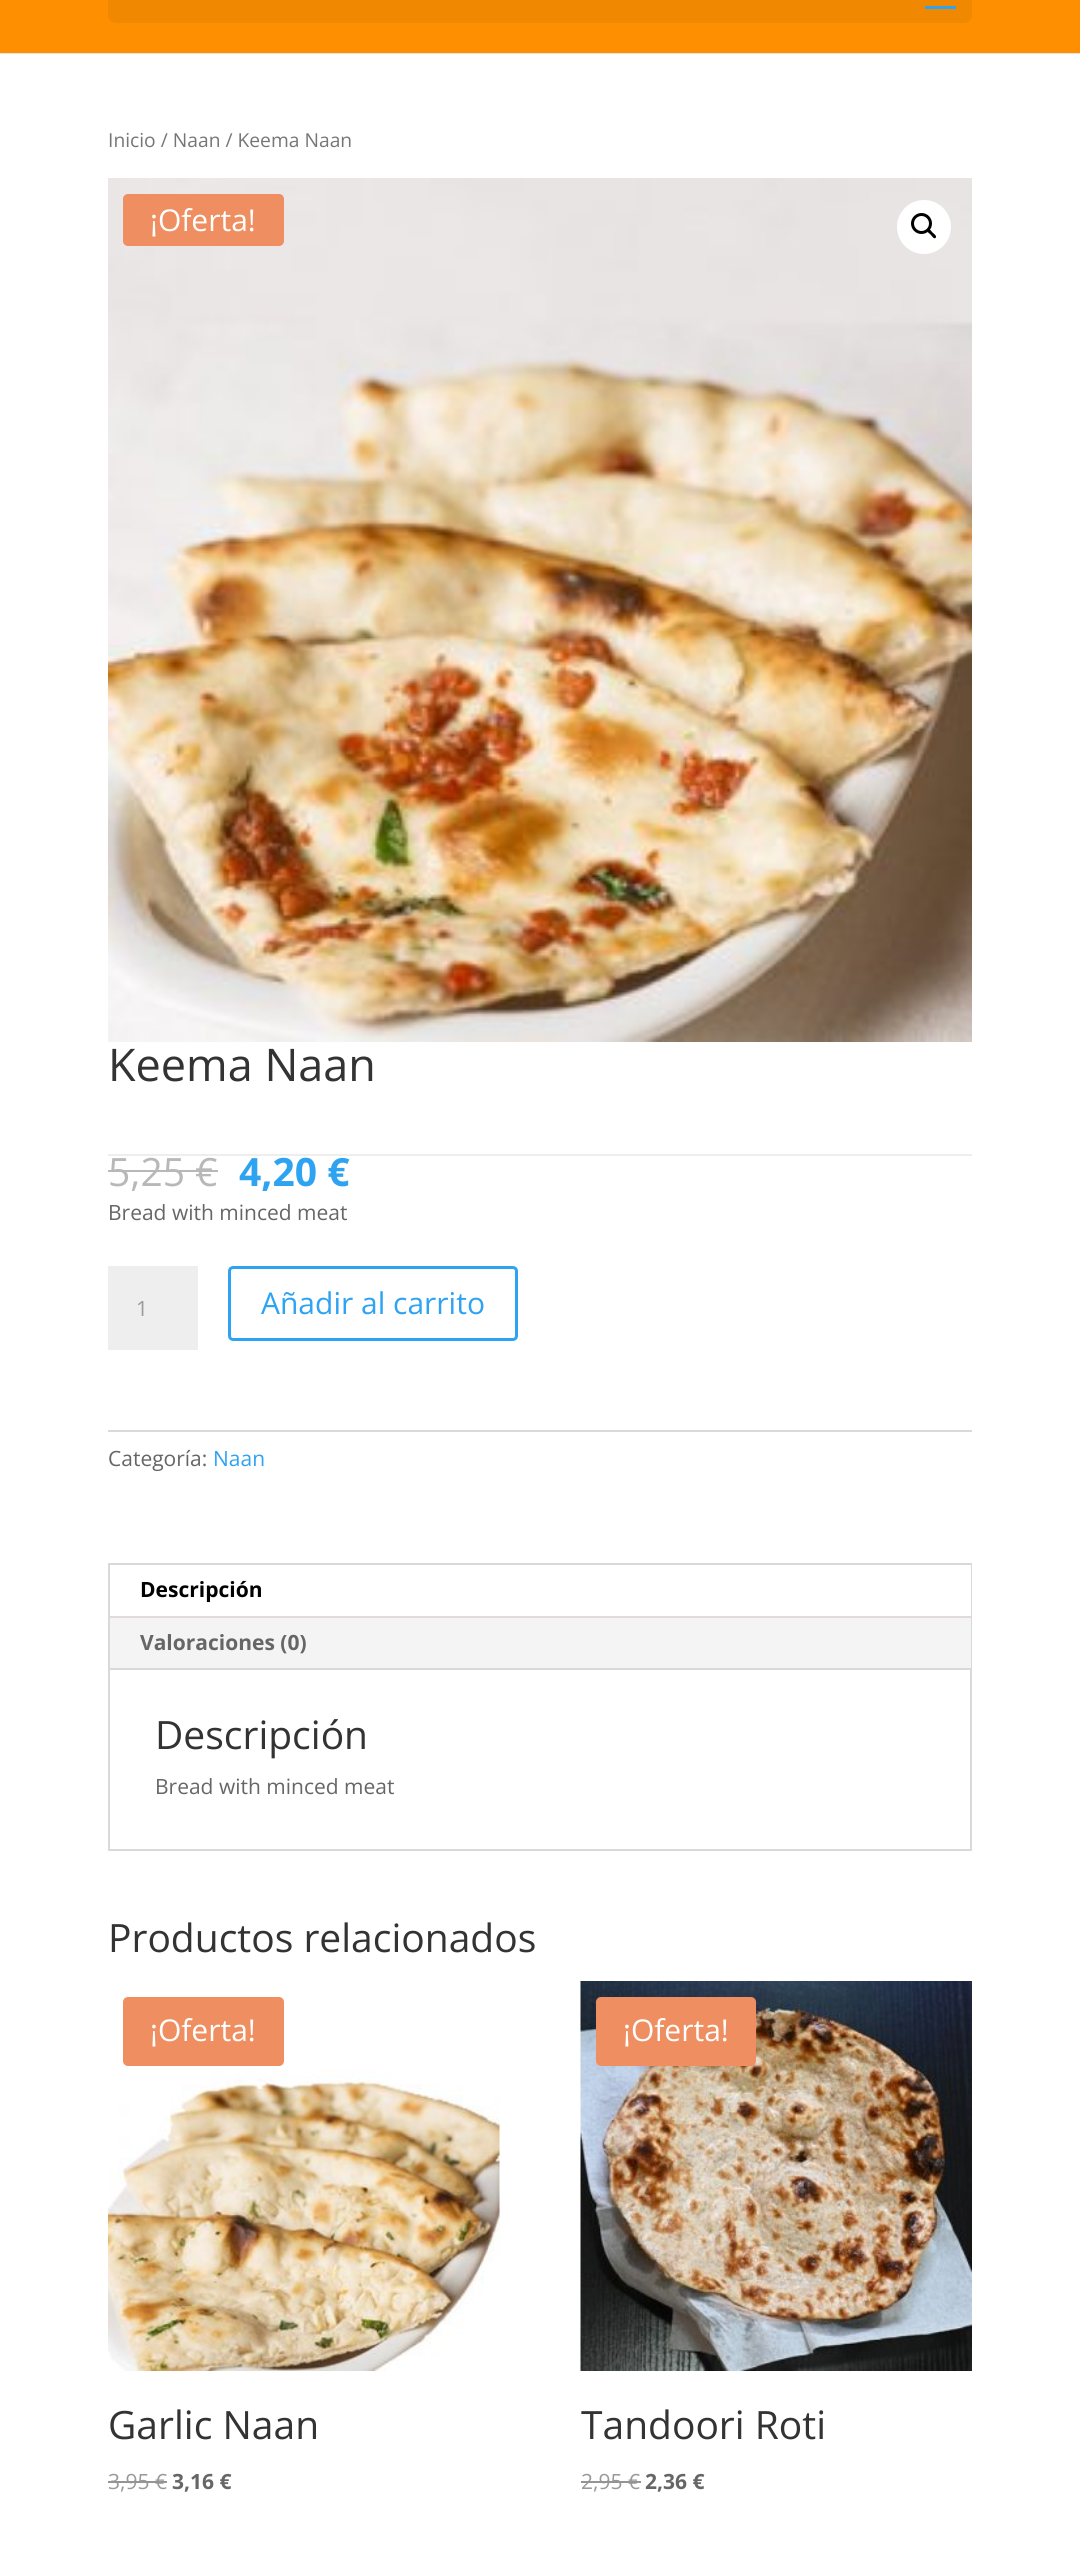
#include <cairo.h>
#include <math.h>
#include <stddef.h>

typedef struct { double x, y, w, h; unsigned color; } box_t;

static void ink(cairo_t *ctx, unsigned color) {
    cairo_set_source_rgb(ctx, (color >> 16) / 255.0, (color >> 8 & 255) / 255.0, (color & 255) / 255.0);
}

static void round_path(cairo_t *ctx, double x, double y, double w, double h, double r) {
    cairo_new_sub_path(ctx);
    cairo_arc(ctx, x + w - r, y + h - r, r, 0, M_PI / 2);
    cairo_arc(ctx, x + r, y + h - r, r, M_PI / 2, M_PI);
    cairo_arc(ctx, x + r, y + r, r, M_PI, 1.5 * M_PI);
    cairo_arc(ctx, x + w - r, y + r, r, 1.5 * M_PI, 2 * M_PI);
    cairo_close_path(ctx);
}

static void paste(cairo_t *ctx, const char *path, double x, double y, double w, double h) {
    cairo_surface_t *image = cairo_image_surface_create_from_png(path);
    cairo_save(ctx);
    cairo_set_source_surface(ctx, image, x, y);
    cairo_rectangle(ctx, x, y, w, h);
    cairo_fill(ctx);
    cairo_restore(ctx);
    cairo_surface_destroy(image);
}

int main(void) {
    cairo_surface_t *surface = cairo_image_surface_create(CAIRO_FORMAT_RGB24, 1080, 2566);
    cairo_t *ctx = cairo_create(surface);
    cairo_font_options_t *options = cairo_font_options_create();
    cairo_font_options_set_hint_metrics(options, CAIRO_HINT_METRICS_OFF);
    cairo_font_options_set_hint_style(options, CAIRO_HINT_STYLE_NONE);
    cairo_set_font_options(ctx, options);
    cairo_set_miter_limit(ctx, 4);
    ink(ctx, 0xFFFFFF);
    cairo_paint(ctx);
    ink(ctx, 0xE6E6E6);
    cairo_rectangle(ctx, 0, 53, 1080, 1);
    cairo_fill(ctx);
    ink(ctx, 0xFE8F01);
    cairo_rectangle(ctx, 0, 0, 1080, 53);
    cairo_fill(ctx);
    ink(ctx, 0xF18801);
    round_path(ctx, 108, -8, 864, 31, 8);
    cairo_fill(ctx);
    ink(ctx, 0x2EA3F2);
    cairo_rectangle(ctx, 925, 6, 31, 3);
    cairo_fill(ctx);
    cairo_select_font_face(ctx, "Open Sans", CAIRO_FONT_SLANT_NORMAL, CAIRO_FONT_WEIGHT_NORMAL);
    cairo_set_font_size(ctx, 19.25);
    ink(ctx, 0x767676);
    cairo_move_to(ctx, 108, 147);
    cairo_show_text(ctx, "Inicio / Naan / Keema Naan");
    paste(ctx, "media/1.png", 108, 178, 864, 864);
    ink(ctx, 0xFFFFFF);
    cairo_arc(ctx, 924, 227, 27, 0, 2 * M_PI);
    cairo_fill(ctx);
    cairo_arc(ctx, 921.5, 223.5, 9, 0, 2 * M_PI);
    ink(ctx, 0x000000);
    cairo_set_line_width(ctx, 3);
    cairo_stroke(ctx);
    cairo_new_path(ctx);
    cairo_move_to(ctx, 927.5, 229.5);
    cairo_curve_to(ctx, 929, 227.5, 931.5, 231.5, 932.5, 232.5);
    cairo_curve_to(ctx, 933.5, 233.5, 937.5, 236, 935.5, 238);
    cairo_curve_to(ctx, 934, 239.5, 931.5, 235.5, 930.5, 234.5);
    cairo_curve_to(ctx, 929.5, 233.5, 925.5, 231, 927.5, 229.5);
    cairo_close_path(ctx);
    cairo_fill(ctx);
    ink(ctx, 0xEF8F61);
    round_path(ctx, 123, 194, 161, 52, 5);
    cairo_fill(ctx);
    cairo_set_font_size(ctx, 30);
    ink(ctx, 0xFFFFFF);
    cairo_move_to(ctx, 150, 231);
    cairo_show_text(ctx, "¡Oferta!");
    cairo_set_font_size(ctx, 45);
    ink(ctx, 0x333333);
    cairo_move_to(ctx, 108, 1081);
    cairo_show_text(ctx, "Keema Naan");
    ink(ctx, 0xEEEEEE);
    cairo_rectangle(ctx, 108, 1154, 864, 2);
    cairo_fill(ctx);
    cairo_set_font_size(ctx, 39);
    ink(ctx, 0xB8B8B8);
    cairo_move_to(ctx, 108, 1186);
    cairo_show_text(ctx, "5,25 €");
    cairo_rectangle(ctx, 108, 1170, 110, 2);
    cairo_fill(ctx);
    cairo_select_font_face(ctx, "Open Sans", CAIRO_FONT_SLANT_NORMAL, CAIRO_FONT_WEIGHT_BOLD);
    ink(ctx, 0x2EA3F2);
    cairo_move_to(ctx, 239, 1186);
    cairo_show_text(ctx, "4,20 €");
    cairo_select_font_face(ctx, "Open Sans", CAIRO_FONT_SLANT_NORMAL, CAIRO_FONT_WEIGHT_NORMAL);
    cairo_set_font_size(ctx, 21);
    ink(ctx, 0x666666);
    cairo_move_to(ctx, 108, 1220);
    cairo_show_text(ctx, "Bread with minced meat");
    ink(ctx, 0xEEEEEE);
    cairo_rectangle(ctx, 108, 1266, 90, 84);
    cairo_fill(ctx);
    ink(ctx, 0x999999);
    cairo_move_to(ctx, 136, 1316);
    cairo_show_text(ctx, "1");
    round_path(ctx, 229.5, 1267.5, 287, 72, 3.5);
    ink(ctx, 0x2EA3F2);
    cairo_stroke(ctx);
    cairo_set_font_size(ctx, 30);
    cairo_move_to(ctx, 261, 1314);
    cairo_show_text(ctx, "Añadir al carrito");
    ink(ctx, 0xDADADA);
    cairo_rectangle(ctx, 108, 1430, 864, 2);
    cairo_fill(ctx);
    cairo_set_font_size(ctx, 21);
    ink(ctx, 0x666666);
    cairo_move_to(ctx, 108, 1466);
    cairo_show_text(ctx, "Categoría:");
    ink(ctx, 0x2EA3F2);
    cairo_move_to(ctx, 213, 1466);
    cairo_show_text(ctx, "Naan");
    cairo_rectangle(ctx, 109, 1564, 862, 286);
    ink(ctx, 0xD9D9D9);
    cairo_set_line_width(ctx, 2);
    cairo_stroke(ctx);
    {
        static const box_t items[] = {
            {110, 1618, 861, 50, 0xF4F4F4},
            {970, 1565, 1, 51, 0xFFFFFF},
            {110, 1616, 861, 2, 0xE0DADF},
        };
        for (size_t i = 0; i < sizeof items / sizeof *items; i++) {
            ink(ctx, items[i].color);
            cairo_rectangle(ctx, items[i].x, items[i].y, items[i].w, items[i].h);
            cairo_fill(ctx);
        }
    }
    cairo_select_font_face(ctx, "Open Sans", CAIRO_FONT_SLANT_NORMAL, CAIRO_FONT_WEIGHT_BOLD);
    ink(ctx, 0x000000);
    cairo_move_to(ctx, 140, 1597);
    cairo_show_text(ctx, "Descripción");
    ink(ctx, 0x666666);
    cairo_move_to(ctx, 140, 1650);
    cairo_show_text(ctx, "Valoraciones (0)");
    ink(ctx, 0xD9D9D9);
    cairo_rectangle(ctx, 110, 1668, 861, 2);
    cairo_fill(ctx);
    cairo_select_font_face(ctx, "Open Sans", CAIRO_FONT_SLANT_NORMAL, CAIRO_FONT_WEIGHT_NORMAL);
    cairo_set_font_size(ctx, 39);
    ink(ctx, 0x333333);
    cairo_move_to(ctx, 155, 1749);
    cairo_show_text(ctx, "Descripción");
    cairo_set_font_size(ctx, 21);
    ink(ctx, 0x666666);
    cairo_move_to(ctx, 155, 1794);
    cairo_show_text(ctx, "Bread with minced meat");
    cairo_set_font_size(ctx, 39);
    ink(ctx, 0x333333);
    cairo_move_to(ctx, 108, 1952);
    cairo_show_text(ctx, "Productos relacionados");
    ink(ctx, 0xEF8F61);
    round_path(ctx, 123, 1997, 161, 69, 5);
    cairo_fill(ctx);
    cairo_set_font_size(ctx, 30);
    ink(ctx, 0xFFFFFF);
    cairo_move_to(ctx, 150, 2041);
    cairo_show_text(ctx, "¡Oferta!");
    paste(ctx, "media/2.png", 108, 2069, 392, 302);
    cairo_set_font_size(ctx, 39);
    ink(ctx, 0x333333);
    cairo_move_to(ctx, 108, 2439);
    cairo_show_text(ctx, "Garlic Naan");
    cairo_set_font_size(ctx, 21);
    ink(ctx, 0x999999);
    cairo_move_to(ctx, 108, 2489);
    cairo_show_text(ctx, "3,95 €");
    ink(ctx, 0x949494);
    cairo_rectangle(ctx, 108, 2481, 59, 2);
    cairo_fill(ctx);
    cairo_select_font_face(ctx, "Open Sans", CAIRO_FONT_SLANT_NORMAL, CAIRO_FONT_WEIGHT_BOLD);
    ink(ctx, 0x666666);
    cairo_move_to(ctx, 172, 2489);
    cairo_show_text(ctx, "3,16 €");
    paste(ctx, "media/3.png", 580, 1981, 392, 390);
    ink(ctx, 0xEF8F61);
    round_path(ctx, 596, 1997, 160, 69, 5);
    cairo_fill(ctx);
    cairo_select_font_face(ctx, "Open Sans", CAIRO_FONT_SLANT_NORMAL, CAIRO_FONT_WEIGHT_NORMAL);
    cairo_set_font_size(ctx, 30);
    ink(ctx, 0xFFFFFF);
    cairo_move_to(ctx, 623, 2041);
    cairo_show_text(ctx, "¡Oferta!");
    cairo_set_font_size(ctx, 39);
    ink(ctx, 0x333333);
    cairo_move_to(ctx, 581, 2439);
    cairo_show_text(ctx, "Tandoori Roti");
    cairo_set_font_size(ctx, 21);
    ink(ctx, 0x999999);
    cairo_move_to(ctx, 581, 2489);
    cairo_show_text(ctx, "2,95");
    ink(ctx, 0x949494);
    cairo_rectangle(ctx, 581, 2481, 48, 2);
    cairo_fill(ctx);
    ink(ctx, 0x999999);
    cairo_move_to(ctx, 628, 2489);
    cairo_show_text(ctx, "€");
    ink(ctx, 0x949494);
    cairo_rectangle(ctx, 629, 2481, 12, 2);
    cairo_fill(ctx);
    cairo_select_font_face(ctx, "Open Sans", CAIRO_FONT_SLANT_NORMAL, CAIRO_FONT_WEIGHT_BOLD);
    ink(ctx, 0x666666);
    cairo_move_to(ctx, 645, 2489);
    cairo_show_text(ctx, "2,36 €");
    cairo_surface_write_to_png(surface, "image.png");
    cairo_font_options_destroy(options);
    cairo_destroy(ctx);
    cairo_surface_destroy(surface);
    return 0;
}
